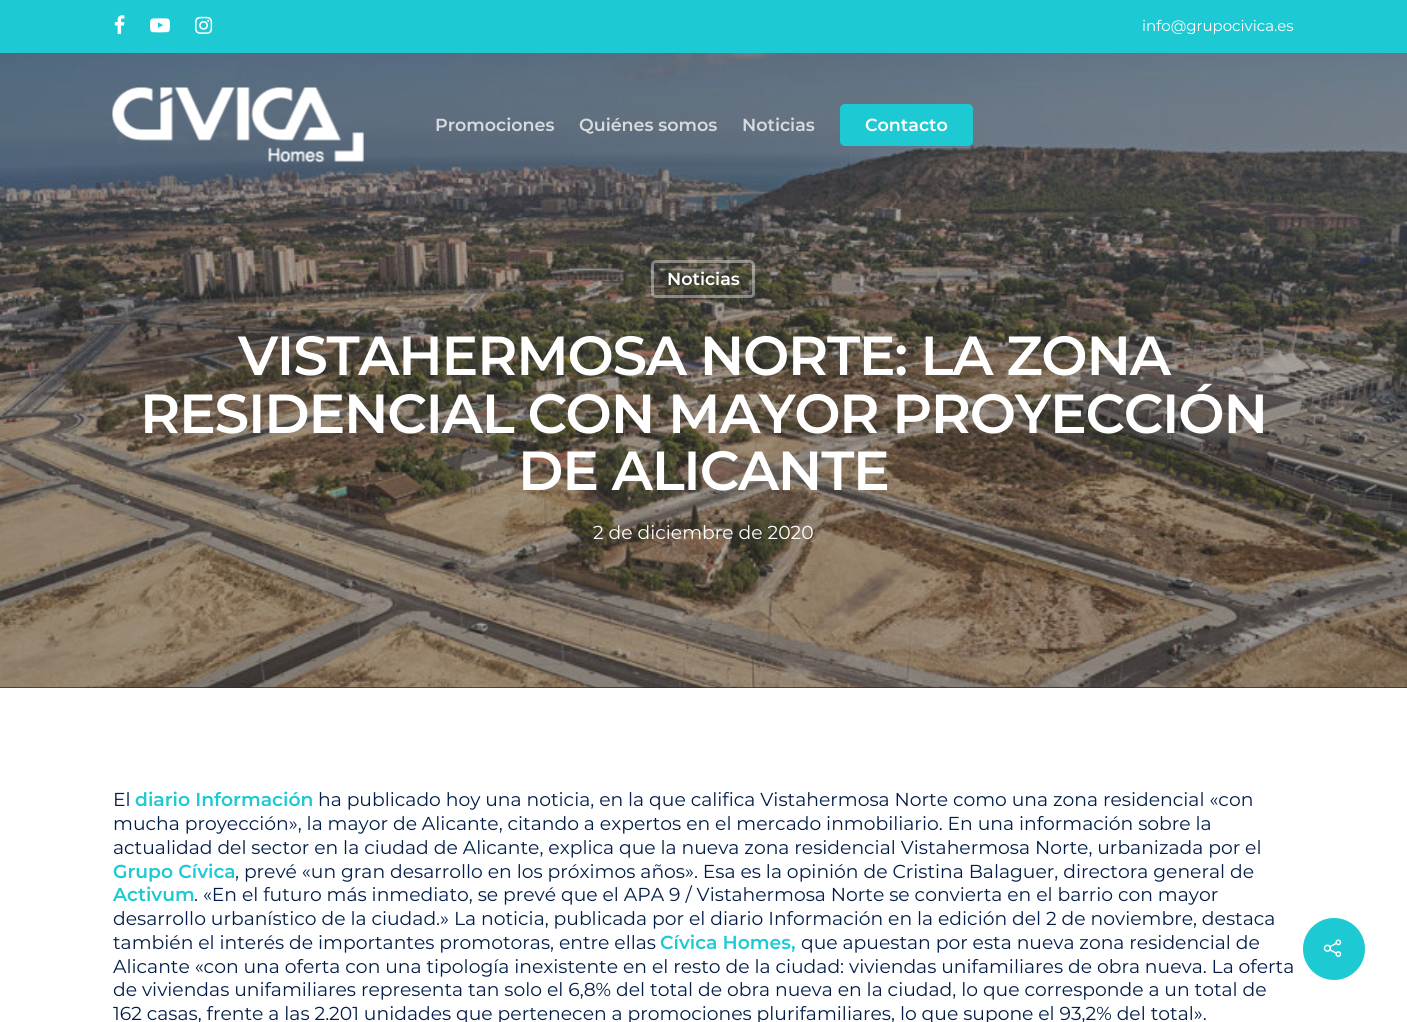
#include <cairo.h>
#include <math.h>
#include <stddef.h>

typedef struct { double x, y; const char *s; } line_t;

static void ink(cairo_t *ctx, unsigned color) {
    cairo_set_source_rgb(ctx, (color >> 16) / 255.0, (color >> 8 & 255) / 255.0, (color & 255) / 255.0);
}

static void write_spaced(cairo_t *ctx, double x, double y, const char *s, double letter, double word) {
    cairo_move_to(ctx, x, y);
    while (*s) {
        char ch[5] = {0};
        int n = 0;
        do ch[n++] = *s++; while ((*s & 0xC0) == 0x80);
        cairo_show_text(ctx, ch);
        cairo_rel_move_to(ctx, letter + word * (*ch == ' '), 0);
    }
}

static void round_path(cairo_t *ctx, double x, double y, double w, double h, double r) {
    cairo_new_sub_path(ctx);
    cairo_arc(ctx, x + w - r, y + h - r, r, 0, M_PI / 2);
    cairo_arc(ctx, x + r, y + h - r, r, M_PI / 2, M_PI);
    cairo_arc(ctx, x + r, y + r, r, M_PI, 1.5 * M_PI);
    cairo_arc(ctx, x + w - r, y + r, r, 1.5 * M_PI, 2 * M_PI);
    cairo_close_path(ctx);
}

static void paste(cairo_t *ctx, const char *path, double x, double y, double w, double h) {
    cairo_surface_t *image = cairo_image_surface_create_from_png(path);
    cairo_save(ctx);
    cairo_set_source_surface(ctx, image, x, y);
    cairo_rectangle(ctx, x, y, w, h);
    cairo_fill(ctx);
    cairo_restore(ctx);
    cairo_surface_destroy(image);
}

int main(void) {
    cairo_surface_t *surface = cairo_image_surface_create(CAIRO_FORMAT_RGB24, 1407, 1022);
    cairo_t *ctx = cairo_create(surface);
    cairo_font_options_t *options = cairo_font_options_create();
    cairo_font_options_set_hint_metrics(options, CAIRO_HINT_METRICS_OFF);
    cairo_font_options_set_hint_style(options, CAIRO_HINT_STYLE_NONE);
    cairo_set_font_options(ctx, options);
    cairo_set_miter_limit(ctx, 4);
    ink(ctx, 0xFFFFFF);
    cairo_paint(ctx);
    ink(ctx, 0x1DCAD3);
    cairo_rectangle(ctx, 0, 0, 1407, 53);
    cairo_fill(ctx);
    paste(ctx, "media/1.png", 114, 15, 11, 19);
    paste(ctx, "media/2.png", 150, 18, 20, 15);
    paste(ctx, "media/3.png", 195, 16, 18, 18);
    cairo_select_font_face(ctx, "Montserrat", CAIRO_FONT_SLANT_NORMAL, CAIRO_FONT_WEIGHT_NORMAL);
    cairo_set_font_size(ctx, 15);
    ink(ctx, 0xFFFFFF);
    cairo_move_to(ctx, 1142, 31);
    cairo_show_text(ctx, "info@grupocivica.es");
    ink(ctx, 0x2D2D2D);
    cairo_rectangle(ctx, 0, 687, 1407, 1);
    cairo_fill(ctx);
    paste(ctx, "media/5.png", 0, 53, 1407, 635);
    paste(ctx, "media/4.png", 112, 87, 252, 76);
    cairo_select_font_face(ctx, "Montserrat SemiBold", CAIRO_FONT_SLANT_NORMAL, CAIRO_FONT_WEIGHT_NORMAL);
    cairo_set_font_size(ctx, 17.5);
    ink(ctx, 0xD7DBDF);
    {
        static const line_t items[] = {
            {435, 131, "Promociones"},
            {579, 131, "Quiénes somos"},
            {742, 131, "Noticias"},
        };
        for (size_t i = 0; i < sizeof items / sizeof *items; i++) {
            cairo_move_to(ctx, items[i].x, items[i].y);
            cairo_show_text(ctx, items[i].s);
        }
    }
    ink(ctx, 0x1DCAD3);
    round_path(ctx, 840, 104, 133, 42, 5);
    cairo_fill(ctx);
    ink(ctx, 0xFFFFFF);
    cairo_move_to(ctx, 865, 131);
    cairo_show_text(ctx, "Contacto");
    round_path(ctx, 652.5, 261.5, 101, 35, 3.5);
    cairo_set_source_rgba(ctx, 1, 1, 1, 0.4);
    cairo_set_line_width(ctx, 3);
    cairo_stroke(ctx);
    ink(ctx, 0xFFFFFF);
    cairo_move_to(ctx, 667, 285);
    cairo_show_text(ctx, "Noticias");
    cairo_set_font_size(ctx, 55);
    {
        static const line_t items[] = {
            {238, 375, "VISTAHERMOSA NORTE: LA ZONA"},
            {140, 433, "RESIDENCIAL CON MAYOR PROYECCIÓN"},
            {518, 490, "DE ALICANTE"},
        };
        for (size_t i = 0; i < sizeof items / sizeof *items; i++) {
            write_spaced(ctx, items[i].x, items[i].y, items[i].s, -1.25, 0);
        }
    }
    cairo_select_font_face(ctx, "Montserrat", CAIRO_FONT_SLANT_NORMAL, CAIRO_FONT_WEIGHT_NORMAL);
    cairo_set_font_size(ctx, 18.75);
    cairo_move_to(ctx, 593, 539);
    cairo_show_text(ctx, "2 de diciembre de 2020");
    ink(ctx, 0x021D49);
    cairo_move_to(ctx, 113, 806);
    cairo_show_text(ctx, "El");
    cairo_select_font_face(ctx, "Montserrat SemiBold", CAIRO_FONT_SLANT_NORMAL, CAIRO_FONT_WEIGHT_NORMAL);
    ink(ctx, 0x1DCAD3);
    cairo_move_to(ctx, 135, 806);
    cairo_show_text(ctx, "diario Información");
    cairo_select_font_face(ctx, "Montserrat", CAIRO_FONT_SLANT_NORMAL, CAIRO_FONT_WEIGHT_NORMAL);
    ink(ctx, 0x021D49);
    {
        static const line_t items[] = {
            {318, 806, "ha publicado hoy una noticia, en la que califica Vistahermosa Norte como una zona residencial «con"},
            {113, 830, "mucha proyección», la mayor de Alicante, citando a expertos en el mercado inmobiliario. En una información sobre la"},
            {113, 854, "actualidad del sector en la ciudad de Alicante, explica que la nueva zona residencial Vistahermosa Norte, urbanizada por el"},
        };
        for (size_t i = 0; i < sizeof items / sizeof *items; i++) {
            cairo_move_to(ctx, items[i].x, items[i].y);
            cairo_show_text(ctx, items[i].s);
        }
    }
    cairo_select_font_face(ctx, "Montserrat SemiBold", CAIRO_FONT_SLANT_NORMAL, CAIRO_FONT_WEIGHT_NORMAL);
    ink(ctx, 0x1DCAD3);
    cairo_move_to(ctx, 113, 878);
    cairo_show_text(ctx, "Grupo Cívica");
    cairo_select_font_face(ctx, "Montserrat", CAIRO_FONT_SLANT_NORMAL, CAIRO_FONT_WEIGHT_NORMAL);
    ink(ctx, 0x021D49);
    cairo_move_to(ctx, 235, 878);
    cairo_show_text(ctx, ", prevé «un gran desarrollo en los próximos años». Esa es la opinión de Cristina Balaguer, directora general de");
    cairo_select_font_face(ctx, "Montserrat SemiBold", CAIRO_FONT_SLANT_NORMAL, CAIRO_FONT_WEIGHT_NORMAL);
    ink(ctx, 0x1DCAD3);
    cairo_move_to(ctx, 113, 901);
    cairo_show_text(ctx, "Activum");
    cairo_select_font_face(ctx, "Montserrat", CAIRO_FONT_SLANT_NORMAL, CAIRO_FONT_WEIGHT_NORMAL);
    ink(ctx, 0x021D49);
    {
        static const line_t items[] = {
            {194, 901, ". «En el futuro más inmediato, se prevé que el APA 9 / Vistahermosa Norte se convierta en el barrio con mayor"},
            {113, 925, "desarrollo urbanístico de la ciudad.» La noticia, publicada por el diario Información en la edición del 2 de noviembre, destaca"},
            {113, 949, "también el interés de importantes promotoras, entre ellas"},
        };
        for (size_t i = 0; i < sizeof items / sizeof *items; i++) {
            cairo_move_to(ctx, items[i].x, items[i].y);
            cairo_show_text(ctx, items[i].s);
        }
    }
    cairo_select_font_face(ctx, "Montserrat SemiBold", CAIRO_FONT_SLANT_NORMAL, CAIRO_FONT_WEIGHT_NORMAL);
    ink(ctx, 0x1DCAD3);
    cairo_move_to(ctx, 660, 949);
    cairo_show_text(ctx, "Cívica Homes,");
    cairo_select_font_face(ctx, "Montserrat", CAIRO_FONT_SLANT_NORMAL, CAIRO_FONT_WEIGHT_NORMAL);
    ink(ctx, 0x021D49);
    {
        static const line_t items[] = {
            {801, 949, "que apuestan por esta nueva zona residencial de"},
            {113, 973, "Alicante «con una oferta con una tipología inexistente en el resto de la ciudad: viviendas unifamiliares de obra nueva. La oferta"},
            {113, 996, "de viviendas unifamiliares representa tan solo el 6,8% del total de obra nueva en la ciudad, lo que corresponde a un total de"},
            {113, 1020, "162 casas, frente a las 2.201 unidades que pertenecen a promociones plurifamiliares, lo que supone el 93,2% del total»."},
        };
        for (size_t i = 0; i < sizeof items / sizeof *items; i++) {
            cairo_move_to(ctx, items[i].x, items[i].y);
            cairo_show_text(ctx, items[i].s);
        }
    }
    ink(ctx, 0x1DCAD3);
    cairo_new_path(ctx);
    cairo_arc(ctx, 1334, 949, 31, 0, 2 * M_PI);
    cairo_fill(ctx);
    paste(ctx, "media/6.png", 1323, 939, 19, 18);
    cairo_surface_write_to_png(surface, "image.png");
    cairo_font_options_destroy(options);
    cairo_destroy(ctx);
    cairo_surface_destroy(surface);
    return 0;
}
